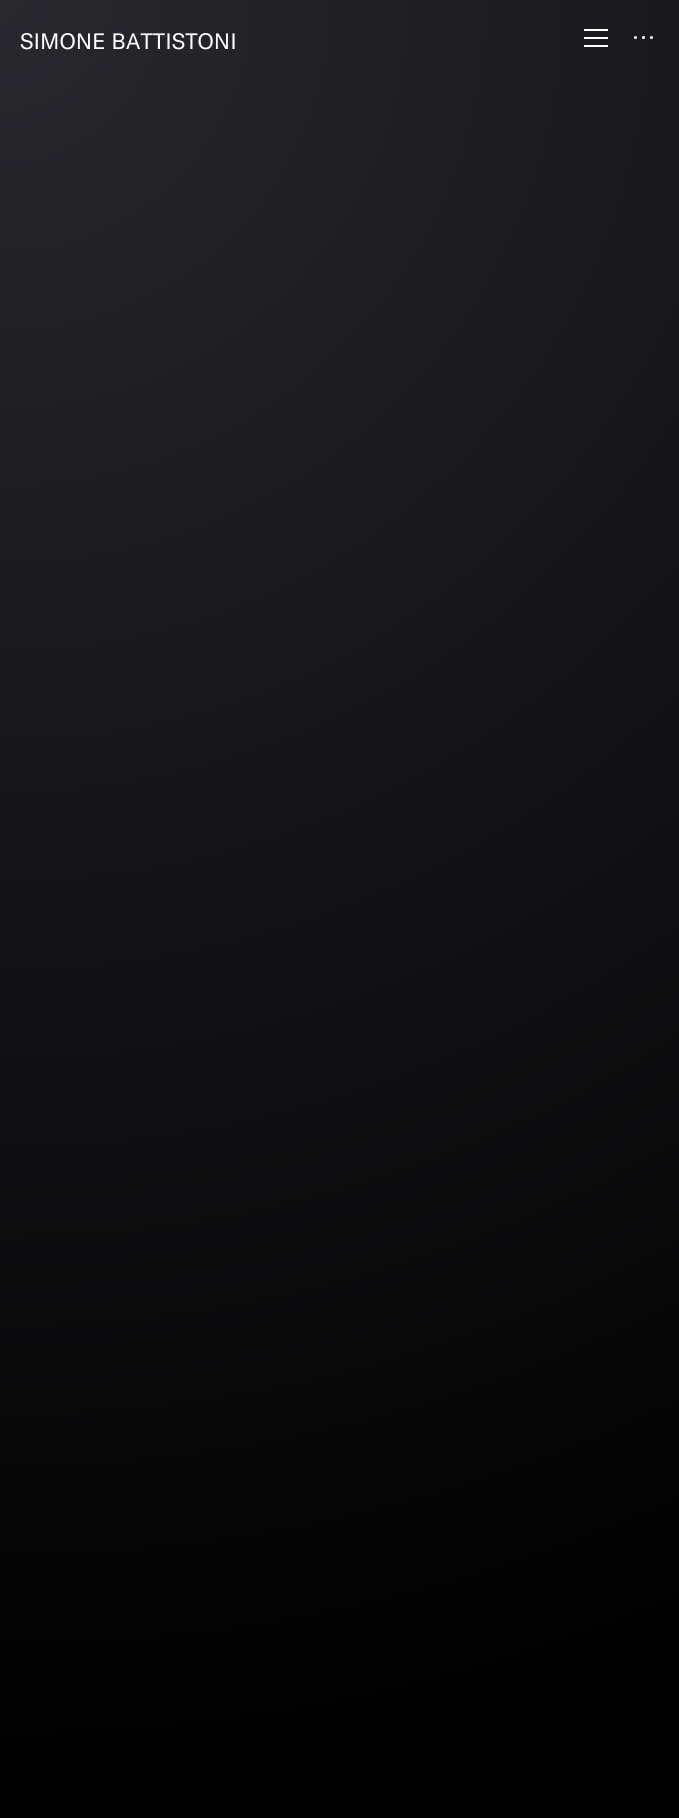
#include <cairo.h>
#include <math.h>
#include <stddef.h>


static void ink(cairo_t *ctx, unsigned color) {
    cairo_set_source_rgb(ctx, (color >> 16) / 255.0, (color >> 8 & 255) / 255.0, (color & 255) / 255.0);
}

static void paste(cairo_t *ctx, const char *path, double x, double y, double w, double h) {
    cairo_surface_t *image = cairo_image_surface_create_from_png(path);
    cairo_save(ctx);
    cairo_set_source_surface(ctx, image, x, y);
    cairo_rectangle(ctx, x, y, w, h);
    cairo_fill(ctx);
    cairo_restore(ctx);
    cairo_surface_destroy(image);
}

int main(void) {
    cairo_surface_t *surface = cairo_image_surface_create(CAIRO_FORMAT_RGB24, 679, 1818);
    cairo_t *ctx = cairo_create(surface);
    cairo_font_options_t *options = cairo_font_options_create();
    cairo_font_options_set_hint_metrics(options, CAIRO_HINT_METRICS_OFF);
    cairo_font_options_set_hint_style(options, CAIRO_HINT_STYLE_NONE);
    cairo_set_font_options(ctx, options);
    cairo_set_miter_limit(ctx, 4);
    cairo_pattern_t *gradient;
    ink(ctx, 0xFFFFFF);
    cairo_paint(ctx);
    gradient = cairo_pattern_create_radial(0, 0, 0, 0, 0, 2571);
    cairo_pattern_add_color_stop_rgba(gradient, 0, 0.157, 0.157, 0.18, 1);
    cairo_pattern_add_color_stop_rgba(gradient, 0.7, 0, 0, 0, 1);
    cairo_set_source(ctx, gradient);
    cairo_pattern_destroy(gradient);
    cairo_rectangle(ctx, 0, 0, 679, 1818);
    cairo_fill(ctx);
    cairo_select_font_face(ctx, "GT America", CAIRO_FONT_SLANT_NORMAL, CAIRO_FONT_WEIGHT_NORMAL);
    cairo_set_font_size(ctx, 22);
    ink(ctx, 0xFFFFFF);
    cairo_move_to(ctx, 20, 49);
    cairo_show_text(ctx, "SIMONE BATTISTONI");
    paste(ctx, "media/1.png", 584, 29, 24, 18);
    cairo_arc(ctx, 635.5, 37.5, 1.5, 0, 2 * M_PI);
    cairo_fill(ctx);
    cairo_arc(ctx, 643.5, 37.5, 1.5, 0, 2 * M_PI);
    cairo_fill(ctx);
    cairo_new_path(ctx);
    cairo_move_to(ctx, 642, 37.5);
    cairo_line_to(ctx, 643.5, 36);
    cairo_line_to(ctx, 645, 37.5);
    cairo_line_to(ctx, 643.5, 39);
    cairo_close_path(ctx);
    cairo_fill(ctx);
    cairo_arc(ctx, 651.5, 37.5, 1.5, 0, 2 * M_PI);
    cairo_fill(ctx);
    cairo_surface_write_to_png(surface, "image.png");
    cairo_font_options_destroy(options);
    cairo_destroy(ctx);
    cairo_surface_destroy(surface);
    return 0;
}
